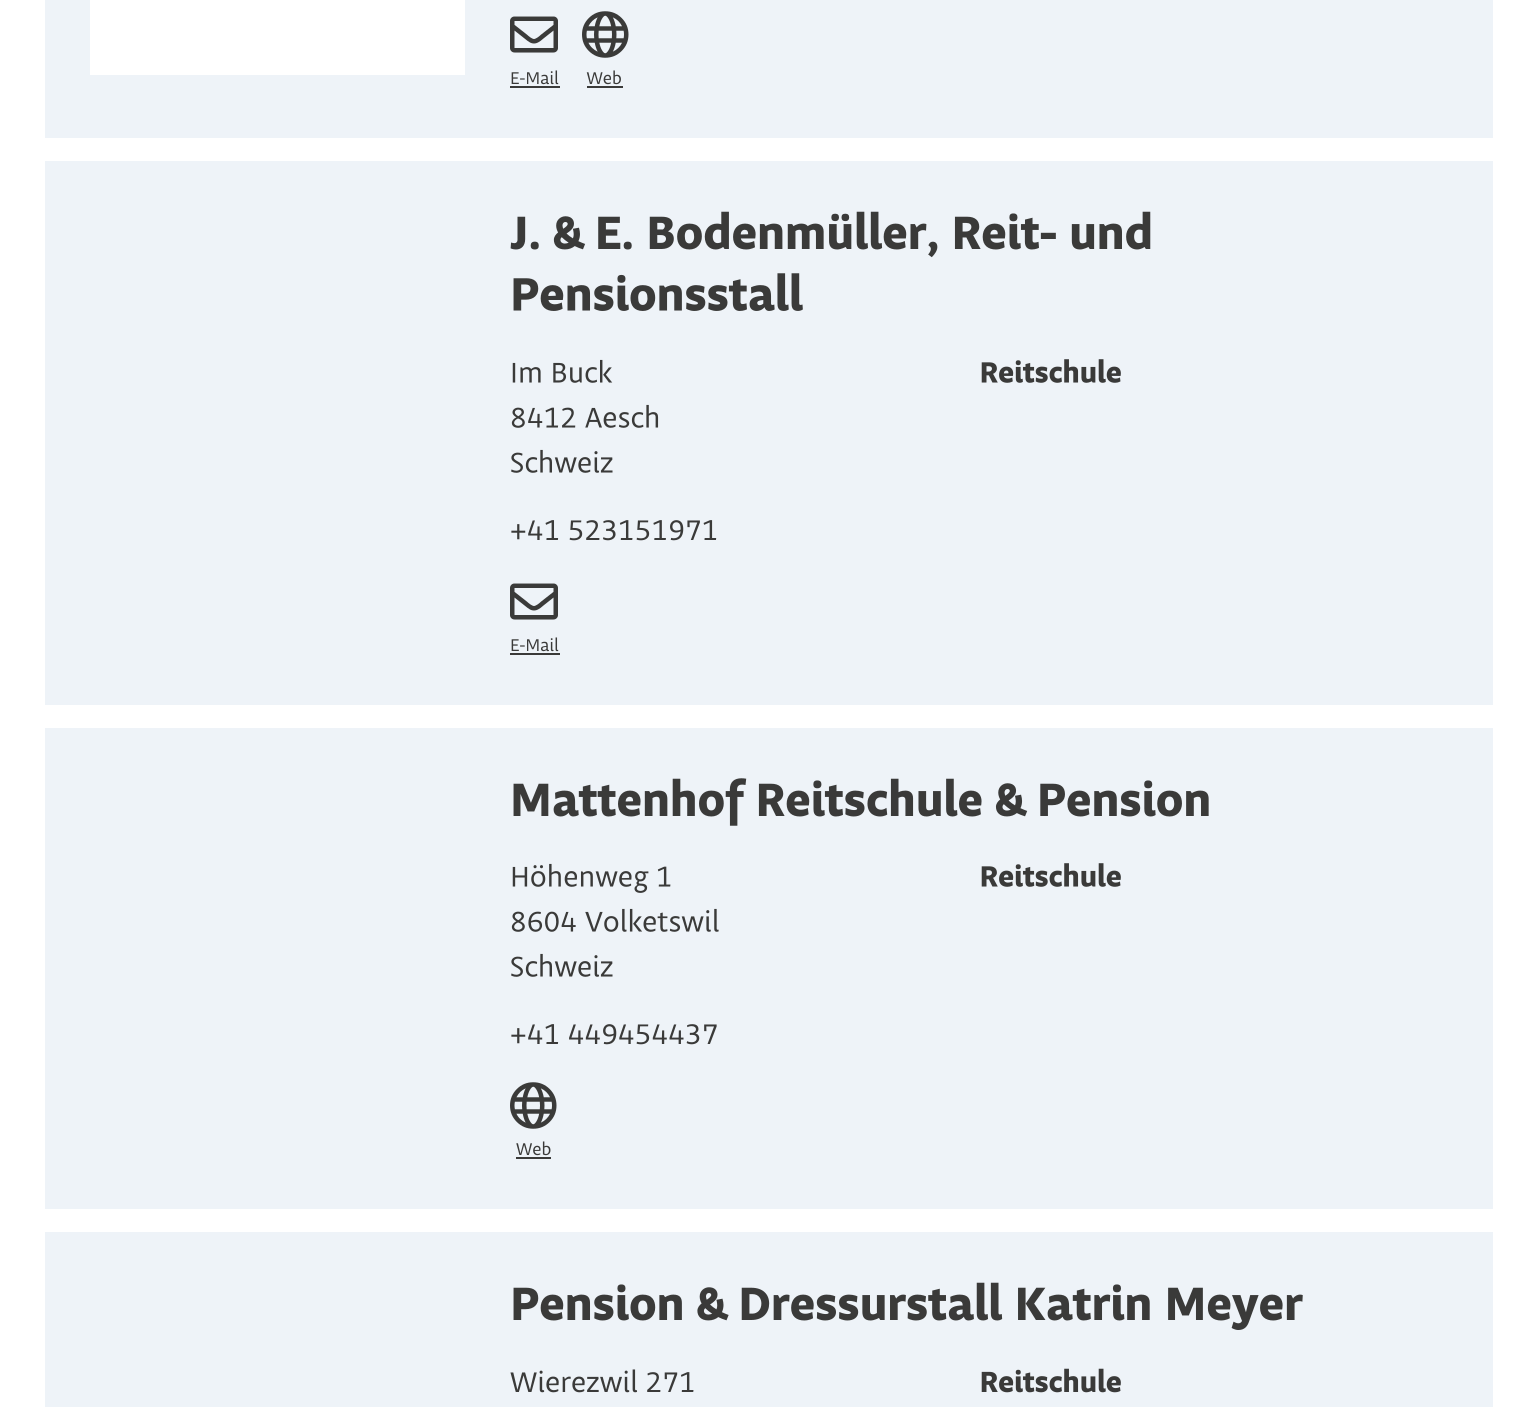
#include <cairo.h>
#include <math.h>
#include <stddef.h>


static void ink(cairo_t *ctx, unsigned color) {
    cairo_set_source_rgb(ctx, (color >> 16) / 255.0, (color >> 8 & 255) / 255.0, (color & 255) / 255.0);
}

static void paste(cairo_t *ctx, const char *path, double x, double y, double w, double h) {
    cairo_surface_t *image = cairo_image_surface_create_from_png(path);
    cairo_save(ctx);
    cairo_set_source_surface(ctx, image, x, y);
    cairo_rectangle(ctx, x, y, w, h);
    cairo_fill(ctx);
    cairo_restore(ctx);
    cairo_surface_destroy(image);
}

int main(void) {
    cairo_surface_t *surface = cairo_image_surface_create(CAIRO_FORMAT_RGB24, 1537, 1407);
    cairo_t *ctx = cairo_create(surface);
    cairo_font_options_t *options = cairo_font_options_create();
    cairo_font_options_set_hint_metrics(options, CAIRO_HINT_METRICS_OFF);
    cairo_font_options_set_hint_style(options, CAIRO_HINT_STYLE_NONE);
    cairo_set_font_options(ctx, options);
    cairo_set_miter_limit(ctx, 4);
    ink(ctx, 0xFFFFFF);
    cairo_paint(ctx);
    ink(ctx, 0xEEF3F8);
    cairo_rectangle(ctx, 45, 0, 1448, 138);
    cairo_fill(ctx);
    ink(ctx, 0xFFFFFF);
    cairo_rectangle(ctx, 90, 0, 375, 75);
    cairo_fill(ctx);
    paste(ctx, "media/1.png", 510, 16, 48, 37);
    paste(ctx, "media/2.png", 511, 70, 48, 15);
    ink(ctx, 0x3A3A39);
    cairo_rectangle(ctx, 510, 86, 50, 2);
    cairo_fill(ctx);
    paste(ctx, "media/3.png", 582, 11, 47, 47);
    paste(ctx, "media/4.png", 586, 70, 35, 15);
    cairo_rectangle(ctx, 587, 86, 36, 2);
    cairo_fill(ctx);
    ink(ctx, 0xEEF3F8);
    cairo_rectangle(ctx, 45, 161, 1448, 544);
    cairo_fill(ctx);
    paste(ctx, "media/5.png", 510, 211, 641, 47);
    paste(ctx, "media/6.png", 513, 273, 290, 38);
    paste(ctx, "media/7.png", 512, 359, 101, 24);
    paste(ctx, "media/8.png", 511, 407, 65, 21);
    paste(ctx, "media/9.png", 585, 404, 74, 24);
    paste(ctx, "media/10.png", 511, 449, 102, 24);
    paste(ctx, "media/11.png", 511, 520, 206, 21);
    paste(ctx, "media/1.png", 510, 583, 48, 37);
    paste(ctx, "media/2.png", 511, 637, 48, 15);
    ink(ctx, 0x3A3A39);
    cairo_rectangle(ctx, 510, 653, 50, 2);
    cairo_fill(ctx);
    paste(ctx, "media/12.png", 981, 359, 140, 24);
    ink(ctx, 0xEEF3F8);
    cairo_rectangle(ctx, 45, 728, 1448, 481);
    cairo_fill(ctx);
    paste(ctx, "media/13.png", 513, 778, 696, 48);
    paste(ctx, "media/14.png", 512, 863, 159, 30);
    paste(ctx, "media/15.png", 511, 911, 65, 21);
    paste(ctx, "media/16.png", 585, 908, 134, 24);
    paste(ctx, "media/10.png", 511, 953, 102, 24);
    paste(ctx, "media/17.png", 511, 1024, 206, 21);
    paste(ctx, "media/3.png", 510, 1082, 47, 47);
    paste(ctx, "media/18.png", 516, 1141, 35, 15);
    ink(ctx, 0x3A3A39);
    cairo_rectangle(ctx, 516, 1157, 35, 2);
    cairo_fill(ctx);
    paste(ctx, "media/12.png", 981, 863, 140, 24);
    ink(ctx, 0xEEF3F8);
    cairo_rectangle(ctx, 45, 1232, 1448, 175);
    cairo_fill(ctx);
    paste(ctx, "media/19.png", 513, 1282, 790, 48);
    paste(ctx, "media/20.png", 510, 1369, 184, 24);
    paste(ctx, "media/21.png", 981, 1368, 140, 25);
    cairo_surface_write_to_png(surface, "image.png");
    cairo_font_options_destroy(options);
    cairo_destroy(ctx);
    cairo_surface_destroy(surface);
    return 0;
}
